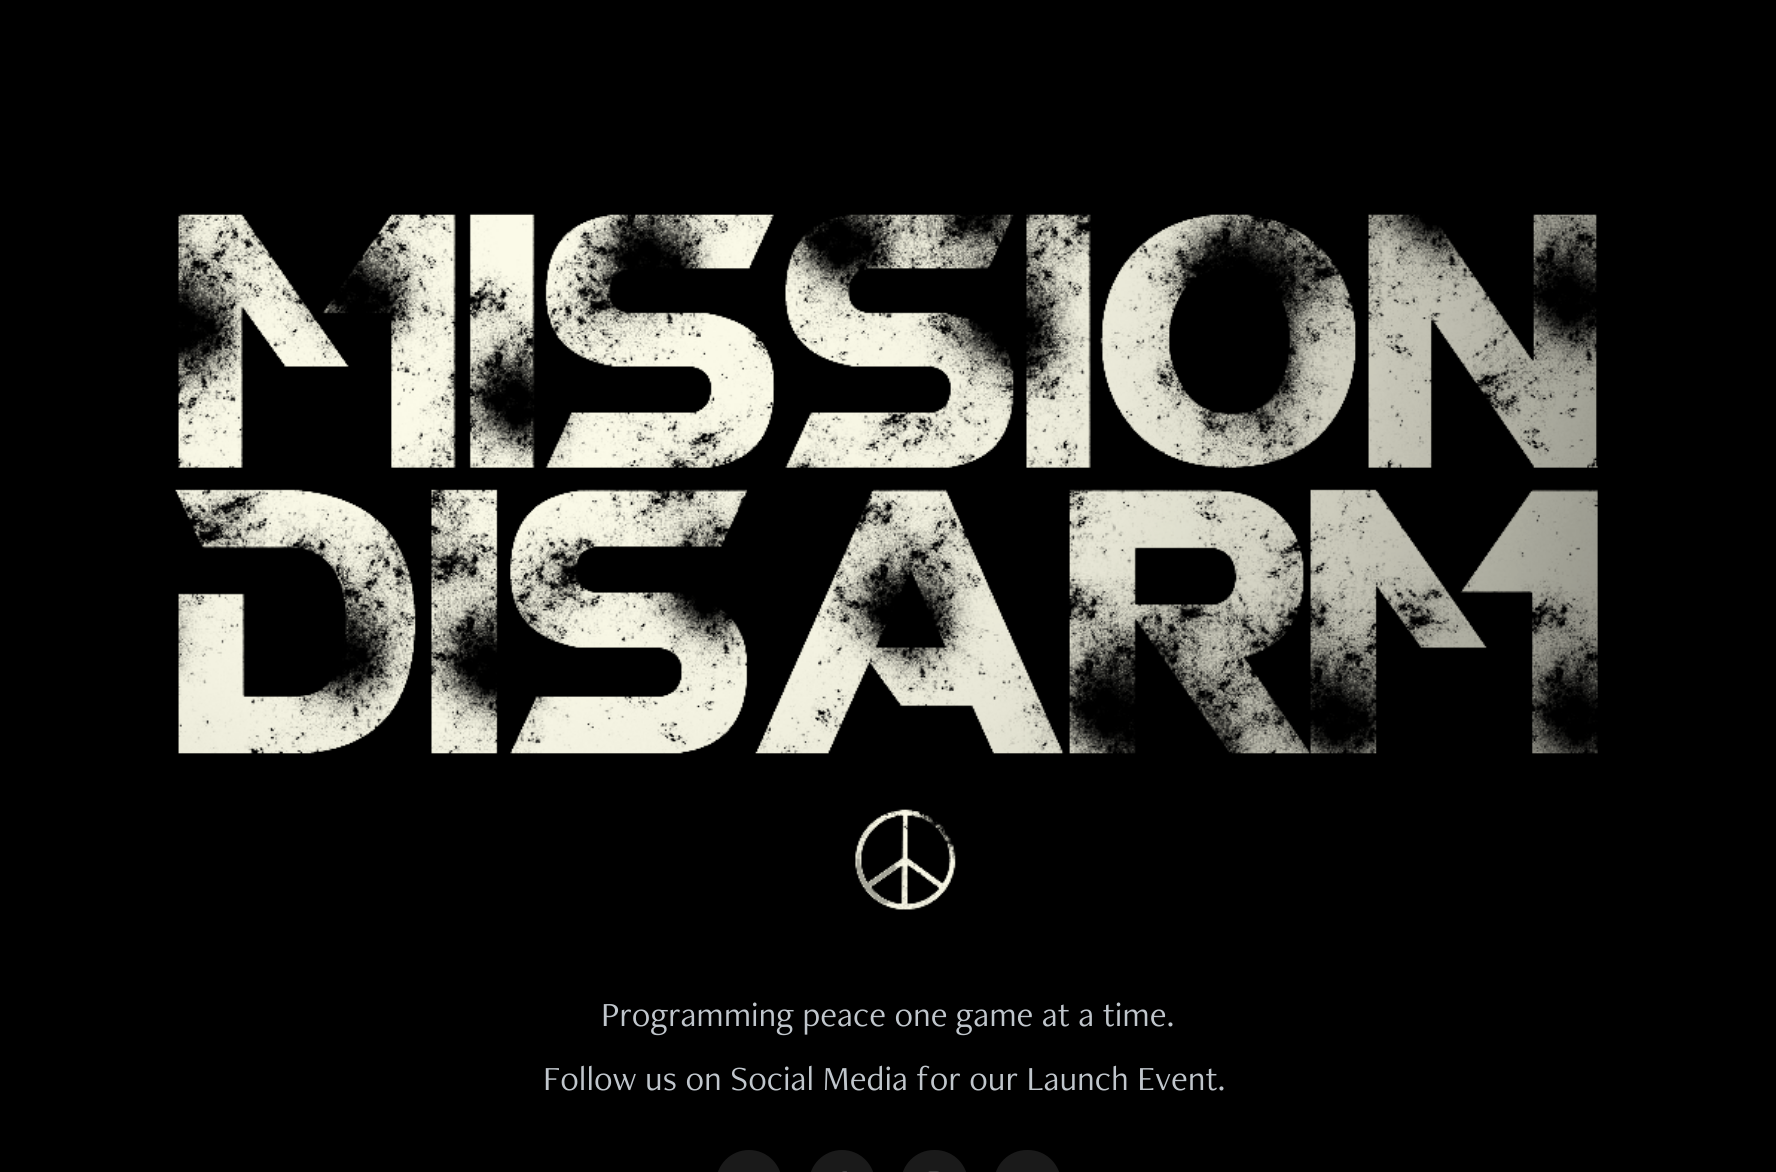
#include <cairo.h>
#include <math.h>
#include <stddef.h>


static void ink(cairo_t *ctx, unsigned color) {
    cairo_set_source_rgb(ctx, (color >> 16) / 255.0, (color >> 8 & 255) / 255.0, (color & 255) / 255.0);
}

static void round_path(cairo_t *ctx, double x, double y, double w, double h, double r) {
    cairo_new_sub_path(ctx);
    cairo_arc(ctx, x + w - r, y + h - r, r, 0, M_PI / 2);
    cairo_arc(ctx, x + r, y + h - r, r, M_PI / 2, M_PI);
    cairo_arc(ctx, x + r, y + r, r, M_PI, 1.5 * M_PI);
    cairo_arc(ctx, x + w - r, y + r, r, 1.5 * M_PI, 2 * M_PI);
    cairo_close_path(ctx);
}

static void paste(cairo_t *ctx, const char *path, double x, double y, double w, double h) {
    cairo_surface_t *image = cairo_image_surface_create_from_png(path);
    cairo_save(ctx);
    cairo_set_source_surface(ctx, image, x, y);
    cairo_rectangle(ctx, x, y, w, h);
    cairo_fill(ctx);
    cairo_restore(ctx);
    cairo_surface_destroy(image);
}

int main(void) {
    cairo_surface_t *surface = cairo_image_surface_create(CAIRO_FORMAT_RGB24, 1776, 1172);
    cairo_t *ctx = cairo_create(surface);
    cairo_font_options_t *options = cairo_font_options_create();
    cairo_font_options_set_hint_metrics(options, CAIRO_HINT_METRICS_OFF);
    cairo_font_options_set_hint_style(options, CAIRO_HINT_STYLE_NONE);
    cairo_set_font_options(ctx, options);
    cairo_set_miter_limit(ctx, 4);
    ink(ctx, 0x000000);
    cairo_paint(ctx);
    paste(ctx, "media/1.png", 175, 213, 1423, 697);
    cairo_select_font_face(ctx, "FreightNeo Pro", CAIRO_FONT_SLANT_NORMAL, CAIRO_FONT_WEIGHT_NORMAL);
    cairo_set_font_size(ctx, 35);
    ink(ctx, 0xC0C6CC);
    cairo_move_to(ctx, 601, 1026);
    cairo_show_text(ctx, "Programming peace one game at a time.");
    cairo_move_to(ctx, 543, 1090);
    cairo_show_text(ctx, "Follow us on Social Media for our Launch Event.");
    ink(ctx, 0x1A1A1A);
    round_path(ctx, 716, 1150, 66, 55, 33);
    cairo_fill(ctx);
    round_path(ctx, 809, 1150, 66, 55, 33);
    cairo_fill(ctx);
    paste(ctx, "media/2.png", 842, 1171, 5, 1);
    round_path(ctx, 901, 1150, 67, 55, 33);
    cairo_fill(ctx);
    paste(ctx, "media/3.png", 928, 1171, 11, 1);
    round_path(ctx, 994, 1150, 67, 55, 33);
    cairo_fill(ctx);
    cairo_surface_write_to_png(surface, "image.png");
    cairo_font_options_destroy(options);
    cairo_destroy(ctx);
    cairo_surface_destroy(surface);
    return 0;
}
